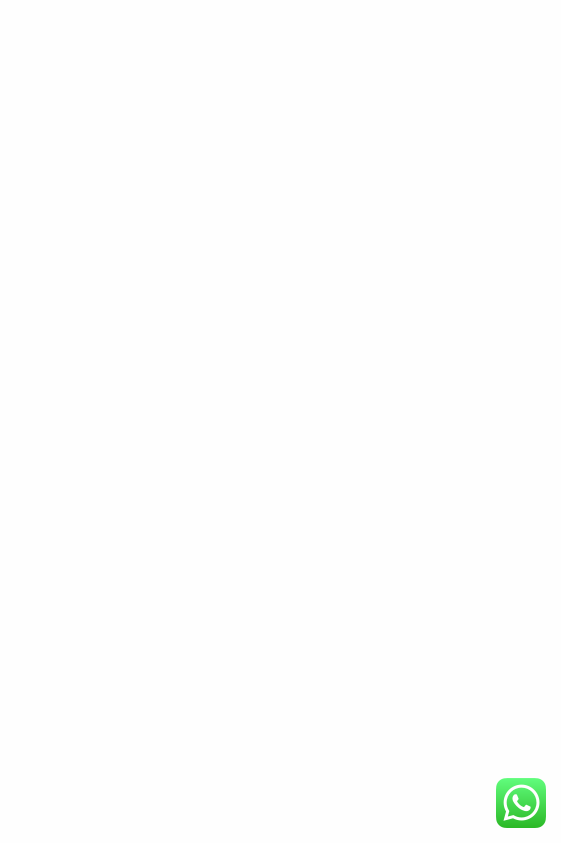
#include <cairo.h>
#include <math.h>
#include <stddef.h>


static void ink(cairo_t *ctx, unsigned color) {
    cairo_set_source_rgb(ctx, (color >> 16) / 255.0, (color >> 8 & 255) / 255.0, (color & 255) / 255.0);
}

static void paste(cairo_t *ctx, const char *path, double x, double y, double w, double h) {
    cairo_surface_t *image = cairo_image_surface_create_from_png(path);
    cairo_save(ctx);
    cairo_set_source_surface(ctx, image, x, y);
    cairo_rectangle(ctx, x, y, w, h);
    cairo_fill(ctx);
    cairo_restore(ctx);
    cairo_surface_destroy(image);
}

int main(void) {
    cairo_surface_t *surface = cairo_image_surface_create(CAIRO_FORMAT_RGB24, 561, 843);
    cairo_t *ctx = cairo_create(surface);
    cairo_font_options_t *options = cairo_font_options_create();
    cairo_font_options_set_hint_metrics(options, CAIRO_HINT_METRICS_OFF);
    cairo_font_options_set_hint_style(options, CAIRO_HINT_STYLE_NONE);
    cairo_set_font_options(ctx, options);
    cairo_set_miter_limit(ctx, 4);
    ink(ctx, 0xFEFEFE);
    cairo_paint(ctx);
    paste(ctx, "media/1.png", 496, 778, 50, 50);
    cairo_surface_write_to_png(surface, "image.png");
    cairo_font_options_destroy(options);
    cairo_destroy(ctx);
    cairo_surface_destroy(surface);
    return 0;
}
